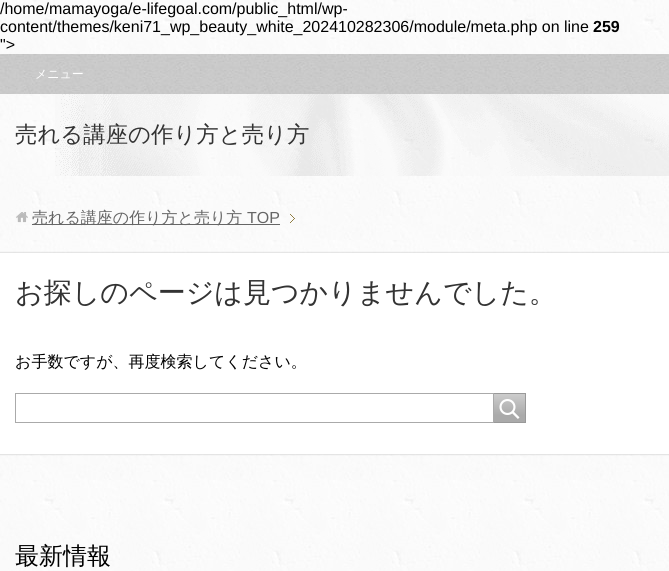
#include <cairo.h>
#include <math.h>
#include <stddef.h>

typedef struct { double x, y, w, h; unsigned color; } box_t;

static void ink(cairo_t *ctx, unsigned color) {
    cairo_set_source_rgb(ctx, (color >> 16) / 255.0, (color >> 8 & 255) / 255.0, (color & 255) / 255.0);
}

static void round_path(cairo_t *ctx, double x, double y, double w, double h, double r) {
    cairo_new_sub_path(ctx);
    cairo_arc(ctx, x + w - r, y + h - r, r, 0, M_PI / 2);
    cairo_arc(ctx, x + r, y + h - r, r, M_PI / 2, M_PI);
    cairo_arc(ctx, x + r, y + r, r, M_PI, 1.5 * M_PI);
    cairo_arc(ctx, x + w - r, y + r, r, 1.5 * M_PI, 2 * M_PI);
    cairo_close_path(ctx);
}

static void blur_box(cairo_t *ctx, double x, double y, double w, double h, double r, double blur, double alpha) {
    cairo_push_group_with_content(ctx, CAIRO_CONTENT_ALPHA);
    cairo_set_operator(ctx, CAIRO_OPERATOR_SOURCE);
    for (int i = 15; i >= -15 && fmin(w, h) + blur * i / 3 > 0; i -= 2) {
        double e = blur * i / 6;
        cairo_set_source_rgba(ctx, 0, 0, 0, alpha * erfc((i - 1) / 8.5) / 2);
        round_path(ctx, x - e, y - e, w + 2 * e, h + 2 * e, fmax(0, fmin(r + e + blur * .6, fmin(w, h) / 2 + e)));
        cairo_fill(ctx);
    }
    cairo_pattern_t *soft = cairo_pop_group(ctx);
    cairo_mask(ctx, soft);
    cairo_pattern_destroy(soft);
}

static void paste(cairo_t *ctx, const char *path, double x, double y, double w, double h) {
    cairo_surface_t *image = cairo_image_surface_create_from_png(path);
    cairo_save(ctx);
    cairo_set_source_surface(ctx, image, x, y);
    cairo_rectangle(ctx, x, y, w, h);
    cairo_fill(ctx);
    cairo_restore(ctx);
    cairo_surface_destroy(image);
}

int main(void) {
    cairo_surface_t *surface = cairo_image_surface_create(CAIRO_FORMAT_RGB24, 669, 571);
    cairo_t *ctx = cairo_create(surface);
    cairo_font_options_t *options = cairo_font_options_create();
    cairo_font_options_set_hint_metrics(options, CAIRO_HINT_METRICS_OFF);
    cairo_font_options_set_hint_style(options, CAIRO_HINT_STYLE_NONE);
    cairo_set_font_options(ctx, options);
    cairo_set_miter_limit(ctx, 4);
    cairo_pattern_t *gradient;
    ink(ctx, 0xFFFFFF);
    cairo_paint(ctx);
    paste(ctx, "media/1.png", 0, 0, 669, 571);
    cairo_select_font_face(ctx, "Liberation Sans", CAIRO_FONT_SLANT_NORMAL, CAIRO_FONT_WEIGHT_NORMAL);
    cairo_set_font_size(ctx, 16);
    ink(ctx, 0x000000);
    cairo_move_to(ctx, 0, 14);
    cairo_show_text(ctx, "/home/mamayoga/e-lifegoal.com/public_html/wp-");
    cairo_move_to(ctx, 0, 32);
    cairo_show_text(ctx, "content/themes/keni71_wp_beauty_white_202410282306/module/meta.php on line");
    cairo_select_font_face(ctx, "Liberation Sans", CAIRO_FONT_SLANT_NORMAL, CAIRO_FONT_WEIGHT_BOLD);
    cairo_move_to(ctx, 593, 32);
    cairo_show_text(ctx, "259");
    cairo_select_font_face(ctx, "Liberation Sans", CAIRO_FONT_SLANT_NORMAL, CAIRO_FONT_WEIGHT_NORMAL);
    cairo_move_to(ctx, 0, 50);
    cairo_show_text(ctx, "\">");
    paste(ctx, "media/2.png", 55, 94, 614, 82);
    paste(ctx, "media/3.png", 0, 54, 669, 40);
    cairo_select_font_face(ctx, "WenQuanYi Zen Hei Medium", CAIRO_FONT_SLANT_NORMAL, CAIRO_FONT_WEIGHT_NORMAL);
    cairo_set_font_size(ctx, 12);
    ink(ctx, 0xFFFFFF);
    cairo_move_to(ctx, 35, 78);
    cairo_show_text(ctx, "メニュー");
    cairo_set_font_size(ctx, 22.4);
    ink(ctx, 0x333333);
    cairo_move_to(ctx, 15, 142);
    cairo_show_text(ctx, "売れる講座の作り方と売り方");
    paste(ctx, "media/4.png", 290, 214, 5, 9);
    paste(ctx, "media/5.png", 16, 212, 12, 11);
    ink(ctx, 0x666666);
    cairo_rectangle(ctx, 32, 224, 248, 1);
    cairo_fill(ctx);
    cairo_set_font_size(ctx, 16);
    cairo_move_to(ctx, 32, 223);
    cairo_show_text(ctx, "売れる講座の作り方と売り方");
    cairo_select_font_face(ctx, "Liberation Sans", CAIRO_FONT_SLANT_NORMAL, CAIRO_FONT_WEIGHT_NORMAL);
    cairo_move_to(ctx, 247, 223);
    cairo_show_text(ctx, "TOP");
    ink(ctx, 0x000000);
    blur_box(ctx, -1, 252, 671, 203, 0, 0.5, 0.1);
    ink(ctx, 0xFFFFFF);
    cairo_rectangle(ctx, 0, 253, 669, 201);
    cairo_fill(ctx);
    cairo_select_font_face(ctx, "WenQuanYi Zen Hei Medium", CAIRO_FONT_SLANT_NORMAL, CAIRO_FONT_WEIGHT_NORMAL);
    cairo_set_font_size(ctx, 28);
    ink(ctx, 0x333333);
    cairo_move_to(ctx, 15, 302);
    cairo_show_text(ctx, "お探しのページは見つかりませんでした。");
    cairo_set_font_size(ctx, 16);
    ink(ctx, 0x000000);
    cairo_move_to(ctx, 15, 367);
    cairo_show_text(ctx, "お手数ですが、再度検索してください。");
    cairo_rectangle(ctx, 15.5, 393.5, 478, 29);
    ink(ctx, 0xAAAAAA);
    cairo_set_line_width(ctx, 1);
    cairo_stroke(ctx);
    gradient = cairo_pattern_create_linear(510, 394, 510, 422);
    cairo_pattern_add_color_stop_rgba(gradient, 0, 0.8, 0.8, 0.8, 1);
    cairo_pattern_add_color_stop_rgba(gradient, 0.75, 0.667, 0.667, 0.667, 1);
    cairo_set_source(ctx, gradient);
    cairo_pattern_destroy(gradient);
    cairo_rectangle(ctx, 494, 394, 31, 28);
    cairo_fill(ctx);
    {
        static const box_t items[] = {
            {494, 393, 32, 1, 0x999999},
            {525, 393, 1, 30, 0x999999},
            {494, 422, 32, 1, 0x999999},
        };
        for (size_t i = 0; i < sizeof items / sizeof *items; i++) {
            ink(ctx, items[i].color);
            cairo_rectangle(ctx, items[i].x, items[i].y, items[i].w, items[i].h);
            cairo_fill(ctx);
        }
    }
    paste(ctx, "media/6.png", 499, 399, 21, 20);
    cairo_set_font_size(ctx, 24);
    ink(ctx, 0x000000);
    cairo_move_to(ctx, 15, 564);
    cairo_show_text(ctx, "最新情報");
    cairo_surface_write_to_png(surface, "image.png");
    cairo_font_options_destroy(options);
    cairo_destroy(ctx);
    cairo_surface_destroy(surface);
    return 0;
}
